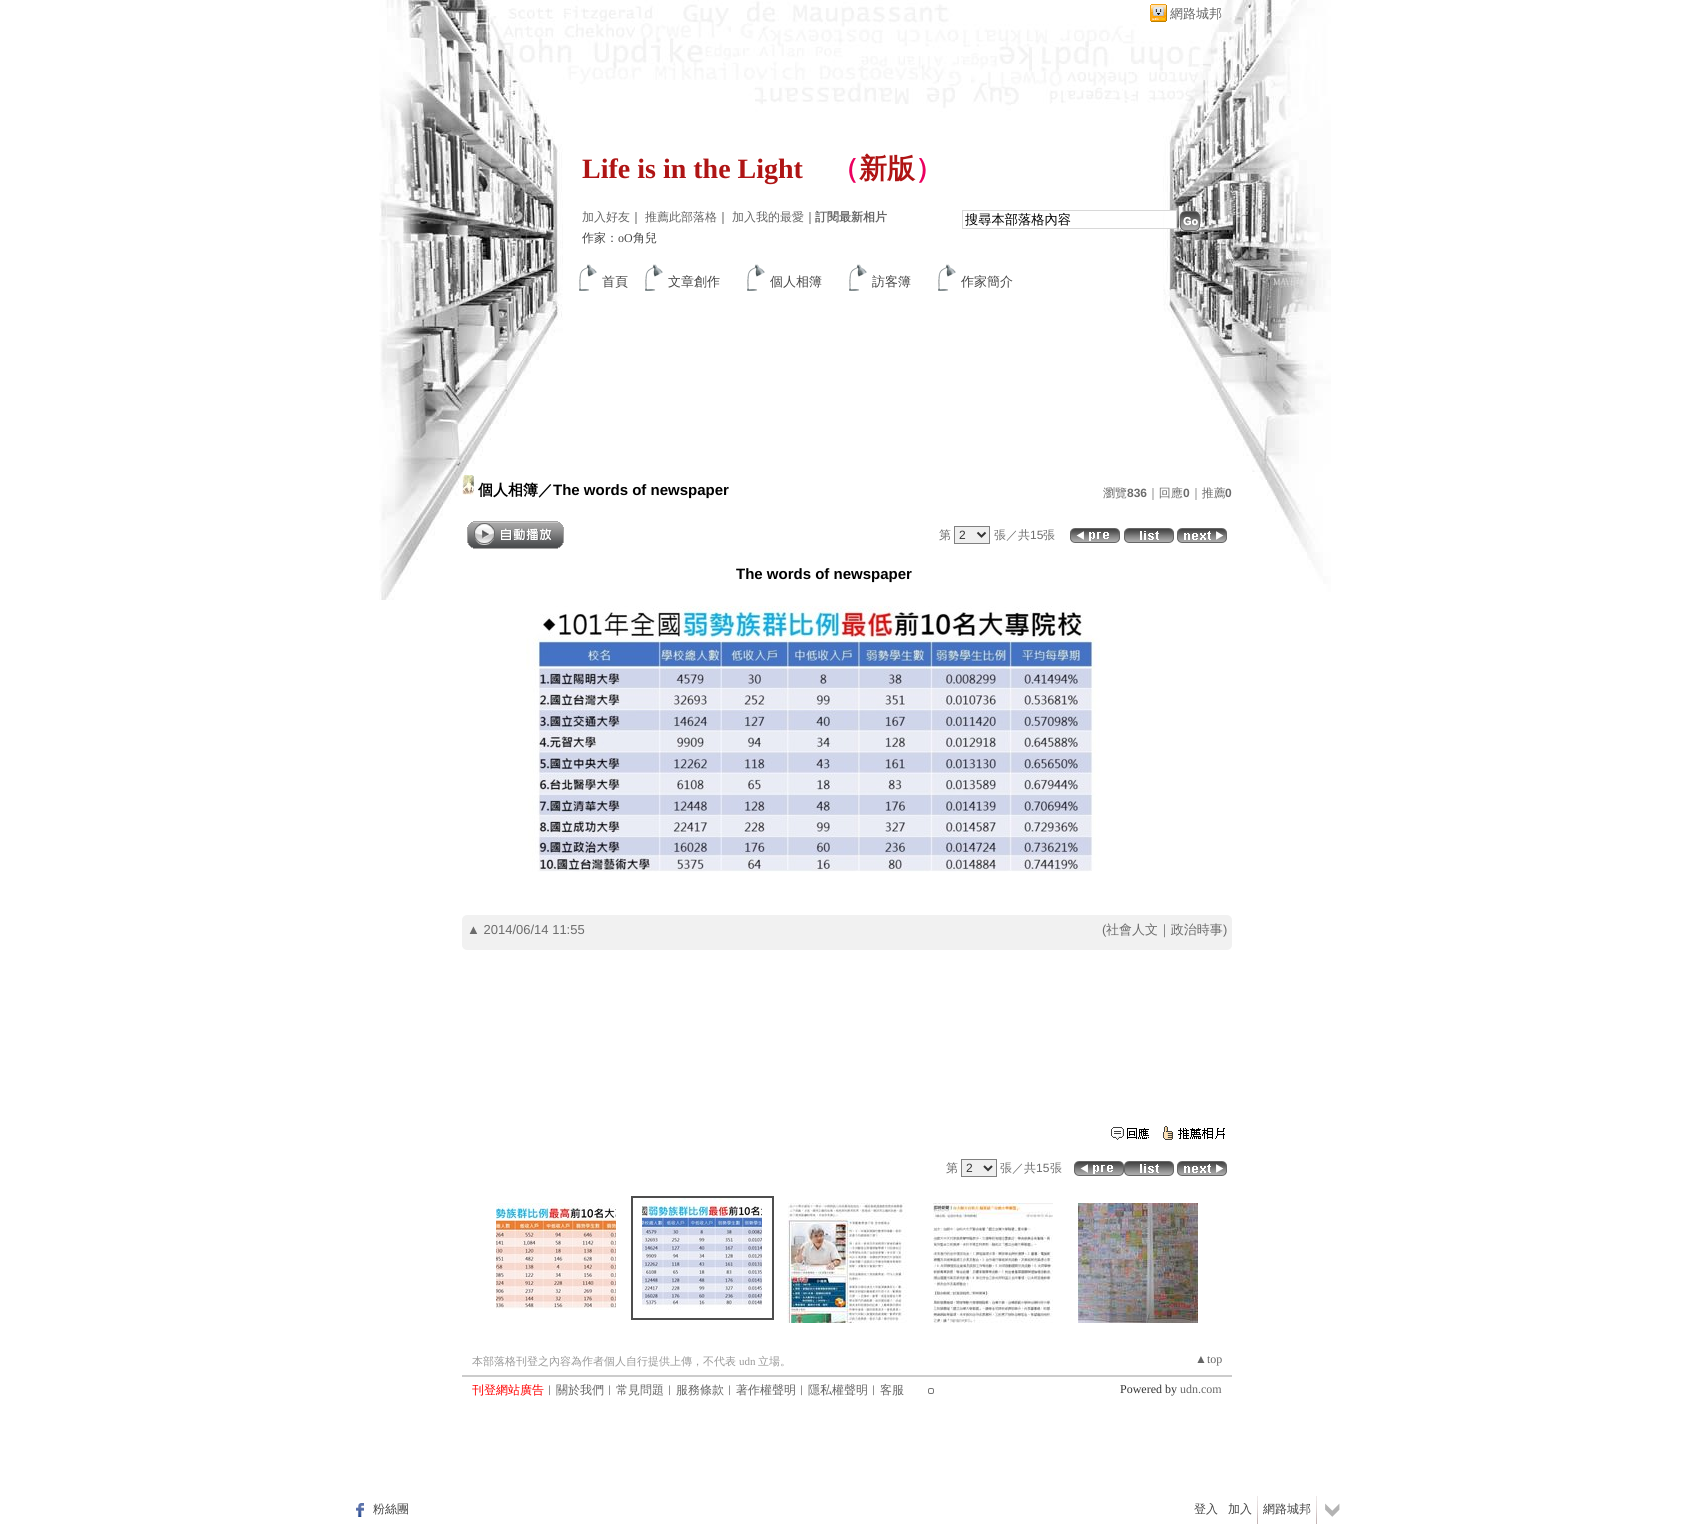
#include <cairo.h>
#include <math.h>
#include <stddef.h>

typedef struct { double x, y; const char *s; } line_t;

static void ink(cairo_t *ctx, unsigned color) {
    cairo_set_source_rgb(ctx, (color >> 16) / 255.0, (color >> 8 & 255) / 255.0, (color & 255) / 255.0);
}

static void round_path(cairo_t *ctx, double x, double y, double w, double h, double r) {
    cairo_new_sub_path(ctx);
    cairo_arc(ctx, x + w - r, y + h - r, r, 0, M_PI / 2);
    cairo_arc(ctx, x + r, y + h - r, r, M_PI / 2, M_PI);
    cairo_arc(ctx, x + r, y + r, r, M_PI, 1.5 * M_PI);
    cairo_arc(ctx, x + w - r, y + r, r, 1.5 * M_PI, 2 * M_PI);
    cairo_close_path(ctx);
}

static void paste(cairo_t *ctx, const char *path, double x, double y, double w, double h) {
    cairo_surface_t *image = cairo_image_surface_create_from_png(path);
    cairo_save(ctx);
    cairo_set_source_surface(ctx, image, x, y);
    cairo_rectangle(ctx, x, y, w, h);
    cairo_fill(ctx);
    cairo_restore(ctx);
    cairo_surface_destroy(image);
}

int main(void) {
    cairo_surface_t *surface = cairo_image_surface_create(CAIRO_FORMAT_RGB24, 1694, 1524);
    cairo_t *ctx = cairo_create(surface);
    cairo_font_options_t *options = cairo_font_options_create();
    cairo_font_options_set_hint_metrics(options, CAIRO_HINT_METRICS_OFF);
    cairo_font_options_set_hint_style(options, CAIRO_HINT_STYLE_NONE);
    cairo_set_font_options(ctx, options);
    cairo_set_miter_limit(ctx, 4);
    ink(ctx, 0xFFFFFF);
    cairo_paint(ctx);
    paste(ctx, "media/1.png", 379, 0, 952, 600);
    paste(ctx, "media/2.png", 1150, 4, 17, 18);
    cairo_select_font_face(ctx, "WenQuanYi Zen Hei Medium", CAIRO_FONT_SLANT_NORMAL, CAIRO_FONT_WEIGHT_NORMAL);
    cairo_set_font_size(ctx, 13);
    ink(ctx, 0x666666);
    cairo_move_to(ctx, 1170, 18);
    cairo_show_text(ctx, "網路城邦");
    cairo_select_font_face(ctx, "Liberation Serif", CAIRO_FONT_SLANT_NORMAL, CAIRO_FONT_WEIGHT_BOLD);
    cairo_set_font_size(ctx, 28);
    ink(ctx, 0xAF1414);
    cairo_move_to(ctx, 582, 178);
    cairo_show_text(ctx, "Life is in the Light");
    cairo_select_font_face(ctx, "WenQuanYi Zen Hei", CAIRO_FONT_SLANT_NORMAL, CAIRO_FONT_WEIGHT_BOLD);
    ink(ctx, 0xEB0060);
    cairo_move_to(ctx, 831, 178);
    cairo_show_text(ctx, "（");
    ink(ctx, 0xAF1414);
    cairo_move_to(ctx, 859, 178);
    cairo_show_text(ctx, "新版");
    ink(ctx, 0xEB0060);
    cairo_move_to(ctx, 915, 178);
    cairo_show_text(ctx, "）");
    cairo_select_font_face(ctx, "WenQuanYi Zen Hei Medium", CAIRO_FONT_SLANT_NORMAL, CAIRO_FONT_WEIGHT_NORMAL);
    cairo_set_font_size(ctx, 12);
    ink(ctx, 0x666666);
    cairo_move_to(ctx, 582, 221);
    cairo_show_text(ctx, "加入好友");
    ink(ctx, 0x333333);
    cairo_move_to(ctx, 630, 221);
    cairo_show_text(ctx, "｜");
    ink(ctx, 0x666666);
    cairo_move_to(ctx, 645, 221);
    cairo_show_text(ctx, "推薦此部落格");
    ink(ctx, 0x333333);
    cairo_move_to(ctx, 717, 221);
    cairo_show_text(ctx, "｜");
    ink(ctx, 0x666666);
    cairo_move_to(ctx, 732, 221);
    cairo_show_text(ctx, "加入我的最愛");
    ink(ctx, 0x333333);
    cairo_move_to(ctx, 804, 221);
    cairo_show_text(ctx, "｜");
    cairo_select_font_face(ctx, "WenQuanYi Zen Hei", CAIRO_FONT_SLANT_NORMAL, CAIRO_FONT_WEIGHT_BOLD);
    ink(ctx, 0x666666);
    cairo_move_to(ctx, 815, 221);
    cairo_show_text(ctx, "訂閱最新相片");
    ink(ctx, 0xFFFFFF);
    cairo_rectangle(ctx, 1165, 211, 11, 17);
    cairo_fill(ctx);
    cairo_rectangle(ctx, 962.5, 210.5, 214, 18);
    ink(ctx, 0xD8D8D8);
    cairo_set_line_width(ctx, 1);
    cairo_stroke(ctx);
    cairo_select_font_face(ctx, "WenQuanYi Zen Hei Medium", CAIRO_FONT_SLANT_NORMAL, CAIRO_FONT_WEIGHT_NORMAL);
    cairo_set_font_size(ctx, 13.25);
    ink(ctx, 0x000000);
    cairo_move_to(ctx, 965, 224);
    cairo_show_text(ctx, "搜尋本部落格內容");
    paste(ctx, "media/3.png", 1180, 211, 20, 20);
    cairo_set_font_size(ctx, 12);
    ink(ctx, 0x454545);
    cairo_move_to(ctx, 582, 242);
    cairo_show_text(ctx, "作家：");
    cairo_select_font_face(ctx, "Liberation Serif", CAIRO_FONT_SLANT_NORMAL, CAIRO_FONT_WEIGHT_NORMAL);
    cairo_move_to(ctx, 618, 242);
    cairo_show_text(ctx, "oO");
    cairo_select_font_face(ctx, "WenQuanYi Zen Hei Medium", CAIRO_FONT_SLANT_NORMAL, CAIRO_FONT_WEIGHT_NORMAL);
    cairo_move_to(ctx, 633, 242);
    cairo_show_text(ctx, "角兒");
    paste(ctx, "media/4.png", 579, 264, 18, 27);
    cairo_set_font_size(ctx, 13);
    cairo_move_to(ctx, 602, 286);
    cairo_show_text(ctx, "首頁");
    paste(ctx, "media/4.png", 645, 264, 18, 27);
    cairo_move_to(ctx, 668, 286);
    cairo_show_text(ctx, "文章創作");
    paste(ctx, "media/4.png", 747, 264, 18, 27);
    cairo_move_to(ctx, 770, 286);
    cairo_show_text(ctx, "個人相簿");
    paste(ctx, "media/4.png", 849, 264, 18, 27);
    cairo_move_to(ctx, 872, 286);
    cairo_show_text(ctx, "訪客簿");
    paste(ctx, "media/4.png", 938, 264, 18, 27);
    cairo_move_to(ctx, 961, 286);
    cairo_show_text(ctx, "作家簡介");
    paste(ctx, "media/5.png", 462, 475, 12, 20);
    cairo_select_font_face(ctx, "WenQuanYi Zen Hei", CAIRO_FONT_SLANT_NORMAL, CAIRO_FONT_WEIGHT_BOLD);
    cairo_set_font_size(ctx, 15);
    ink(ctx, 0x000000);
    cairo_move_to(ctx, 478, 495);
    cairo_show_text(ctx, "個人相簿／");
    cairo_select_font_face(ctx, "Liberation Sans", CAIRO_FONT_SLANT_NORMAL, CAIRO_FONT_WEIGHT_BOLD);
    cairo_move_to(ctx, 553, 495);
    cairo_show_text(ctx, "The words of newspaper");
    cairo_select_font_face(ctx, "WenQuanYi Zen Hei Medium", CAIRO_FONT_SLANT_NORMAL, CAIRO_FONT_WEIGHT_NORMAL);
    cairo_set_font_size(ctx, 12);
    ink(ctx, 0x6C6C6C);
    cairo_move_to(ctx, 1103, 497);
    cairo_show_text(ctx, "瀏覽");
    cairo_select_font_face(ctx, "Liberation Sans", CAIRO_FONT_SLANT_NORMAL, CAIRO_FONT_WEIGHT_BOLD);
    cairo_move_to(ctx, 1127, 497);
    cairo_show_text(ctx, "836");
    cairo_select_font_face(ctx, "WenQuanYi Zen Hei Medium", CAIRO_FONT_SLANT_NORMAL, CAIRO_FONT_WEIGHT_NORMAL);
    cairo_move_to(ctx, 1147, 497);
    cairo_show_text(ctx, "｜回應");
    cairo_select_font_face(ctx, "Liberation Sans", CAIRO_FONT_SLANT_NORMAL, CAIRO_FONT_WEIGHT_BOLD);
    cairo_move_to(ctx, 1183, 497);
    cairo_show_text(ctx, "0");
    cairo_select_font_face(ctx, "WenQuanYi Zen Hei Medium", CAIRO_FONT_SLANT_NORMAL, CAIRO_FONT_WEIGHT_NORMAL);
    cairo_move_to(ctx, 1190, 497);
    cairo_show_text(ctx, "｜推薦");
    cairo_select_font_face(ctx, "Liberation Sans", CAIRO_FONT_SLANT_NORMAL, CAIRO_FONT_WEIGHT_BOLD);
    cairo_move_to(ctx, 1225, 497);
    cairo_show_text(ctx, "0");
    paste(ctx, "media/6.png", 467, 521, 97, 28);
    cairo_select_font_face(ctx, "WenQuanYi Zen Hei Medium", CAIRO_FONT_SLANT_NORMAL, CAIRO_FONT_WEIGHT_NORMAL);
    cairo_move_to(ctx, 939, 539);
    cairo_show_text(ctx, "第");
    ink(ctx, 0xEFEFEF);
    cairo_rectangle(ctx, 954.5, 526.5, 35, 17);
    cairo_fill_preserve(ctx);
    ink(ctx, 0x808080);
    cairo_stroke(ctx);
    cairo_new_path(ctx);
    cairo_move_to(ctx, 977.5, 532.5);
    cairo_line_to(ctx, 981.5, 536.5);
    cairo_line_to(ctx, 985.5, 532.5);
    ink(ctx, 0x333333);
    cairo_set_line_width(ctx, 2);
    cairo_stroke(ctx);
    cairo_select_font_face(ctx, "Liberation Sans", CAIRO_FONT_SLANT_NORMAL, CAIRO_FONT_WEIGHT_NORMAL);
    cairo_move_to(ctx, 959, 539);
    cairo_show_text(ctx, "2");
    cairo_select_font_face(ctx, "WenQuanYi Zen Hei Medium", CAIRO_FONT_SLANT_NORMAL, CAIRO_FONT_WEIGHT_NORMAL);
    ink(ctx, 0x6C6C6C);
    cairo_move_to(ctx, 994, 539);
    cairo_show_text(ctx, "張／共");
    cairo_select_font_face(ctx, "Liberation Sans", CAIRO_FONT_SLANT_NORMAL, CAIRO_FONT_WEIGHT_NORMAL);
    cairo_move_to(ctx, 1030, 539);
    cairo_show_text(ctx, "15");
    cairo_select_font_face(ctx, "WenQuanYi Zen Hei Medium", CAIRO_FONT_SLANT_NORMAL, CAIRO_FONT_WEIGHT_NORMAL);
    cairo_move_to(ctx, 1043, 539);
    cairo_show_text(ctx, "張");
    paste(ctx, "media/7.png", 1070, 528, 50, 15);
    paste(ctx, "media/8.png", 1124, 528, 50, 15);
    paste(ctx, "media/9.png", 1177, 528, 50, 15);
    cairo_select_font_face(ctx, "Liberation Sans", CAIRO_FONT_SLANT_NORMAL, CAIRO_FONT_WEIGHT_BOLD);
    cairo_set_font_size(ctx, 15);
    ink(ctx, 0x000000);
    cairo_move_to(ctx, 736, 579);
    cairo_show_text(ctx, "The words of newspaper");
    paste(ctx, "media/10.png", 526, 606, 574, 266);
    paste(ctx, "media/11.png", 462, 915, 5, 5);
    ink(ctx, 0xF1F1F1);
    cairo_rectangle(ctx, 467, 915, 760, 5);
    cairo_fill(ctx);
    paste(ctx, "media/12.png", 1227, 915, 5, 5);
    cairo_rectangle(ctx, 462, 920, 770, 25);
    cairo_fill(ctx);
    cairo_select_font_face(ctx, "Liberation Sans", CAIRO_FONT_SLANT_NORMAL, CAIRO_FONT_WEIGHT_NORMAL);
    cairo_set_font_size(ctx, 13);
    ink(ctx, 0x6C6C6C);
    cairo_move_to(ctx, 467, 934);
    cairo_show_text(ctx, "▲ 2014/06/14 11:55");
    cairo_move_to(ctx, 1102, 934);
    cairo_show_text(ctx, "(");
    cairo_select_font_face(ctx, "WenQuanYi Zen Hei Medium", CAIRO_FONT_SLANT_NORMAL, CAIRO_FONT_WEIGHT_NORMAL);
    cairo_move_to(ctx, 1106, 934);
    cairo_show_text(ctx, "社會人文｜政治時事");
    cairo_select_font_face(ctx, "Liberation Sans", CAIRO_FONT_SLANT_NORMAL, CAIRO_FONT_WEIGHT_NORMAL);
    cairo_move_to(ctx, 1223, 934);
    cairo_show_text(ctx, ")");
    paste(ctx, "media/13.png", 462, 945, 5, 5);
    ink(ctx, 0xF1F1F1);
    cairo_rectangle(ctx, 467, 945, 760, 5);
    cairo_fill(ctx);
    paste(ctx, "media/14.png", 1227, 945, 5, 5);
    paste(ctx, "media/15.png", 1111, 1127, 38, 13);
    paste(ctx, "media/16.png", 1163, 1126, 62, 14);
    cairo_select_font_face(ctx, "WenQuanYi Zen Hei Medium", CAIRO_FONT_SLANT_NORMAL, CAIRO_FONT_WEIGHT_NORMAL);
    cairo_set_font_size(ctx, 12);
    ink(ctx, 0x6C6C6C);
    cairo_move_to(ctx, 946, 1172);
    cairo_show_text(ctx, "第");
    ink(ctx, 0xEFEFEF);
    cairo_rectangle(ctx, 961.5, 1159.5, 35, 17);
    cairo_fill_preserve(ctx);
    ink(ctx, 0x808080);
    cairo_set_line_width(ctx, 1);
    cairo_stroke(ctx);
    cairo_new_path(ctx);
    cairo_move_to(ctx, 984, 1166);
    cairo_line_to(ctx, 988, 1170);
    cairo_line_to(ctx, 992, 1166);
    ink(ctx, 0x333333);
    cairo_set_line_width(ctx, 2);
    cairo_stroke(ctx);
    cairo_select_font_face(ctx, "Liberation Sans", CAIRO_FONT_SLANT_NORMAL, CAIRO_FONT_WEIGHT_NORMAL);
    cairo_move_to(ctx, 966, 1172);
    cairo_show_text(ctx, "2");
    cairo_select_font_face(ctx, "WenQuanYi Zen Hei Medium", CAIRO_FONT_SLANT_NORMAL, CAIRO_FONT_WEIGHT_NORMAL);
    ink(ctx, 0x6C6C6C);
    cairo_move_to(ctx, 1000, 1172);
    cairo_show_text(ctx, "張／共");
    cairo_select_font_face(ctx, "Liberation Sans", CAIRO_FONT_SLANT_NORMAL, CAIRO_FONT_WEIGHT_NORMAL);
    cairo_move_to(ctx, 1036, 1172);
    cairo_show_text(ctx, "15");
    cairo_select_font_face(ctx, "WenQuanYi Zen Hei Medium", CAIRO_FONT_SLANT_NORMAL, CAIRO_FONT_WEIGHT_NORMAL);
    cairo_move_to(ctx, 1050, 1172);
    cairo_show_text(ctx, "張");
    paste(ctx, "media/7.png", 1074, 1161, 50, 15);
    paste(ctx, "media/8.png", 1124, 1161, 50, 15);
    paste(ctx, "media/9.png", 1177, 1161, 50, 15);
    paste(ctx, "media/17.png", 496, 1203, 120, 107);
    cairo_rectangle(ctx, 632, 1197, 141, 122);
    ink(ctx, 0x4D4D4D);
    cairo_stroke(ctx);
    paste(ctx, "media/18.png", 642, 1198, 120, 112);
    paste(ctx, "media/19.png", 787, 1203, 120, 120);
    paste(ctx, "media/20.png", 933, 1203, 120, 120);
    paste(ctx, "media/21.png", 1078, 1203, 120, 120);
    ink(ctx, 0xCCCCCC);
    cairo_rectangle(ctx, 462, 1375, 770, 2);
    cairo_fill(ctx);
    cairo_set_font_size(ctx, 11);
    ink(ctx, 0x999999);
    cairo_move_to(ctx, 472, 1365);
    cairo_show_text(ctx, "本部落格刊登之內容為作者個人自行提供上傳，不代表");
    cairo_select_font_face(ctx, "Liberation Serif", CAIRO_FONT_SLANT_NORMAL, CAIRO_FONT_WEIGHT_NORMAL);
    cairo_move_to(ctx, 739, 1365);
    cairo_show_text(ctx, "udn");
    cairo_select_font_face(ctx, "WenQuanYi Zen Hei Medium", CAIRO_FONT_SLANT_NORMAL, CAIRO_FONT_WEIGHT_NORMAL);
    cairo_move_to(ctx, 758, 1365);
    cairo_show_text(ctx, "立場。");
    cairo_select_font_face(ctx, "Liberation Serif", CAIRO_FONT_SLANT_NORMAL, CAIRO_FONT_WEIGHT_NORMAL);
    cairo_set_font_size(ctx, 12);
    ink(ctx, 0x666666);
    cairo_move_to(ctx, 1195, 1363);
    cairo_show_text(ctx, "▲top");
    cairo_select_font_face(ctx, "WenQuanYi Zen Hei Medium", CAIRO_FONT_SLANT_NORMAL, CAIRO_FONT_WEIGHT_NORMAL);
    ink(ctx, 0xFF0000);
    cairo_move_to(ctx, 472, 1394);
    cairo_show_text(ctx, "刊登網站廣告");
    ink(ctx, 0x333333);
    cairo_move_to(ctx, 544, 1394);
    cairo_show_text(ctx, "︱");
    ink(ctx, 0x666666);
    cairo_move_to(ctx, 556, 1394);
    cairo_show_text(ctx, "關於我們");
    ink(ctx, 0x333333);
    cairo_move_to(ctx, 604, 1394);
    cairo_show_text(ctx, "︱");
    ink(ctx, 0x666666);
    cairo_move_to(ctx, 616, 1394);
    cairo_show_text(ctx, "常見問題");
    ink(ctx, 0x333333);
    cairo_move_to(ctx, 664, 1394);
    cairo_show_text(ctx, "︱");
    ink(ctx, 0x666666);
    cairo_move_to(ctx, 676, 1394);
    cairo_show_text(ctx, "服務條款");
    ink(ctx, 0x333333);
    cairo_move_to(ctx, 724, 1394);
    cairo_show_text(ctx, "︱");
    ink(ctx, 0x666666);
    cairo_move_to(ctx, 736, 1394);
    cairo_show_text(ctx, "著作權聲明");
    ink(ctx, 0x333333);
    cairo_move_to(ctx, 796, 1394);
    cairo_show_text(ctx, "︱");
    ink(ctx, 0x666666);
    cairo_move_to(ctx, 808, 1394);
    cairo_show_text(ctx, "隱私權聲明");
    ink(ctx, 0x333333);
    cairo_move_to(ctx, 868, 1394);
    cairo_show_text(ctx, "︱");
    ink(ctx, 0x666666);
    cairo_move_to(ctx, 880, 1394);
    cairo_show_text(ctx, "客服");
    round_path(ctx, 928.5, 1388.5, 5, 5, 1.5);
    ink(ctx, 0x767676);
    cairo_set_line_width(ctx, 1);
    cairo_stroke(ctx);
    cairo_select_font_face(ctx, "Liberation Serif", CAIRO_FONT_SLANT_NORMAL, CAIRO_FONT_WEIGHT_NORMAL);
    ink(ctx, 0x333333);
    cairo_move_to(ctx, 1120, 1393);
    cairo_show_text(ctx, "Powered by");
    ink(ctx, 0x666666);
    cairo_move_to(ctx, 1180, 1393);
    cairo_show_text(ctx, "udn.com");
    paste(ctx, "media/22.png", 356, 1503, 8, 14);
    cairo_select_font_face(ctx, "WenQuanYi Zen Hei Medium", CAIRO_FONT_SLANT_NORMAL, CAIRO_FONT_WEIGHT_NORMAL);
    ink(ctx, 0x454545);
    {
        static const line_t items[] = {
            {373, 1513, "粉絲團"},
            {1194, 1513, "登入"},
            {1228, 1513, "加入"},
        };
        for (size_t i = 0; i < sizeof items / sizeof *items; i++) {
            cairo_move_to(ctx, items[i].x, items[i].y);
            cairo_show_text(ctx, items[i].s);
        }
    }
    paste(ctx, "media/23.png", 1257, 1496, 1, 28);
    cairo_move_to(ctx, 1263, 1513);
    cairo_show_text(ctx, "網路城邦");
    paste(ctx, "media/23.png", 1316, 1496, 1, 28);
    paste(ctx, "media/24.png", 1325, 1503, 15, 14);
    cairo_surface_write_to_png(surface, "image.png");
    cairo_font_options_destroy(options);
    cairo_destroy(ctx);
    cairo_surface_destroy(surface);
    return 0;
}
